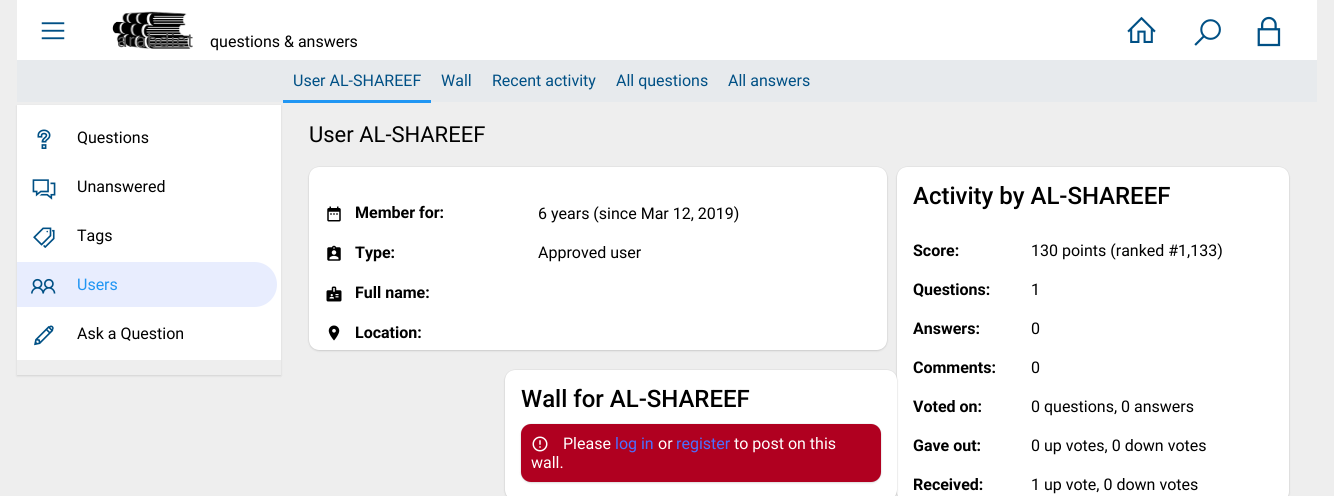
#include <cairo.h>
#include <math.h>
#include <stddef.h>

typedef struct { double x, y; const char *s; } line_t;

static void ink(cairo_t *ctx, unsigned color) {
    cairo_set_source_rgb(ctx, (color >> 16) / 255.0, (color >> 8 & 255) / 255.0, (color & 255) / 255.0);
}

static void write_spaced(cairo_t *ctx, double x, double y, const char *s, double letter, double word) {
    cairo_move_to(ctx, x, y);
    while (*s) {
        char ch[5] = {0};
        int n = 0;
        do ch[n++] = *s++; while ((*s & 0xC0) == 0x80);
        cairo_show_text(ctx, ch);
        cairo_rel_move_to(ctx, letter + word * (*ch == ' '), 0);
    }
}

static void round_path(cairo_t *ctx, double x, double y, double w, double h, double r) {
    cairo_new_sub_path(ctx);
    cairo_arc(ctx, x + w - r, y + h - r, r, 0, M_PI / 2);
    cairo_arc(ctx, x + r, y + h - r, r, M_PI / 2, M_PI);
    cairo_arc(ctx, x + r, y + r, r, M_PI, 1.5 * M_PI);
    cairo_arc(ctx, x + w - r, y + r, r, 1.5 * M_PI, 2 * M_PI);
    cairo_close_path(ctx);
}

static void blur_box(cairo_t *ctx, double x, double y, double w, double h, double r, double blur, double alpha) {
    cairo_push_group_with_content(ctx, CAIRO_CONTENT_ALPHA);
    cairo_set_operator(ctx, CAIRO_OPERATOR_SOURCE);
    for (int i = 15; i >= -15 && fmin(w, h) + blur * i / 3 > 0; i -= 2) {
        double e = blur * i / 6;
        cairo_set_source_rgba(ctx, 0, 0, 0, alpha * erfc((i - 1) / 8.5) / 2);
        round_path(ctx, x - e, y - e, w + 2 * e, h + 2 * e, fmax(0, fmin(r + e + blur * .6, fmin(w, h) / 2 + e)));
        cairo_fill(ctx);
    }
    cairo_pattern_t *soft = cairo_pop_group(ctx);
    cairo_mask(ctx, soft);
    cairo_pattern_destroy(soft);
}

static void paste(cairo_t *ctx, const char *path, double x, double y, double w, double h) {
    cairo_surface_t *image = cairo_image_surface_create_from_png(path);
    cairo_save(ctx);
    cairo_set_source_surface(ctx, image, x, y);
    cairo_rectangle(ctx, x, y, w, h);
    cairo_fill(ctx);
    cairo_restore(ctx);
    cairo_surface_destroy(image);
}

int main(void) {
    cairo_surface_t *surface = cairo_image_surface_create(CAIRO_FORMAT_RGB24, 1334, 496);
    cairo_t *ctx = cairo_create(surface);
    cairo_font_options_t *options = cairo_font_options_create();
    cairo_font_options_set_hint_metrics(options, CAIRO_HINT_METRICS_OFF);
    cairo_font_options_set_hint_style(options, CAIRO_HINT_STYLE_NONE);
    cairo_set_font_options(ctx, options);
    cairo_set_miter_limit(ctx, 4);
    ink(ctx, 0xEEEEEE);
    cairo_paint(ctx);
    ink(ctx, 0xE7EAED);
    cairo_rectangle(ctx, 17, 60, 1300, 42);
    cairo_fill(ctx);
    ink(ctx, 0xFFFFFF);
    cairo_rectangle(ctx, 17, 0, 1300, 60);
    cairo_fill(ctx);
    paste(ctx, "media/1.png", 41, 22, 24, 18);
    paste(ctx, "media/2.png", 112, 11, 79, 38);
    cairo_select_font_face(ctx, "Roboto", CAIRO_FONT_SLANT_NORMAL, CAIRO_FONT_WEIGHT_NORMAL);
    cairo_set_font_size(ctx, 19);
    ink(ctx, 0x575757);
    write_spaced(ctx, 117, 47, "arabdict", 1, 0);
    cairo_set_font_size(ctx, 16);
    ink(ctx, 0x000000);
    cairo_move_to(ctx, 210, 47);
    cairo_show_text(ctx, "questions & answers");
    paste(ctx, "media/3.png", 1127, 16, 29, 27);
    paste(ctx, "media/4.png", 1194, 19, 27, 27);
    paste(ctx, "media/5.png", 1257, 16, 24, 31);
    ink(ctx, 0x005085);
    cairo_move_to(ctx, 293, 86);
    cairo_show_text(ctx, "User AL-SHAREEF");
    ink(ctx, 0x000000);
    blur_box(ctx, 17, 106, 264, 270, 0, 1, 0.12);
    ink(ctx, 0x2196F3);
    cairo_rectangle(ctx, 283, 100, 148, 3);
    cairo_fill(ctx);
    ink(ctx, 0x005085);
    {
        static const line_t items[] = {
            {441, 86, "Wall"},
            {492, 86, "Recent activity"},
            {616, 86, "All questions"},
            {728, 86, "All answers"},
        };
        for (size_t i = 0; i < sizeof items / sizeof *items; i++) {
            cairo_move_to(ctx, items[i].x, items[i].y);
            cairo_show_text(ctx, items[i].s);
        }
    }
    ink(ctx, 0xFFFFFF);
    cairo_rectangle(ctx, 17, 105, 264, 255);
    cairo_fill(ctx);
    paste(ctx, "media/6.png", 37, 129, 14, 20);
    ink(ctx, 0x000000);
    cairo_move_to(ctx, 77, 143);
    cairo_show_text(ctx, "Questions");
    paste(ctx, "media/7.png", 32, 179, 24, 21);
    cairo_move_to(ctx, 77, 192);
    cairo_show_text(ctx, "Unanswered");
    paste(ctx, "media/8.png", 33, 227, 22, 21);
    cairo_move_to(ctx, 77, 241);
    cairo_show_text(ctx, "Tags");
    ink(ctx, 0xE8EDFE);
    cairo_new_path(ctx);
    cairo_move_to(ctx, 17, 262);
    cairo_line_to(ctx, 254.5, 262);
    cairo_curve_to(ctx, 267, 262, 277, 272, 277, 284.5);
    cairo_curve_to(ctx, 277, 297, 267, 307, 254.5, 307);
    cairo_line_to(ctx, 17, 307);
    cairo_close_path(ctx);
    cairo_fill(ctx);
    paste(ctx, "media/9.png", 31, 278, 25, 16);
    ink(ctx, 0x2196F3);
    cairo_move_to(ctx, 77, 290);
    cairo_show_text(ctx, "Users");
    paste(ctx, "media/10.png", 34, 325, 20, 21);
    ink(ctx, 0x000000);
    cairo_move_to(ctx, 77, 339);
    cairo_show_text(ctx, "Ask a Question");
    ink(ctx, 0xEEEEEE);
    cairo_rectangle(ctx, 17, 360, 264, 15);
    cairo_fill(ctx);
    cairo_set_font_size(ctx, 22);
    ink(ctx, 0x000000);
    cairo_move_to(ctx, 309, 142);
    cairo_show_text(ctx, "User AL-SHAREEF");
    ink(ctx, 0x000000);
    blur_box(ctx, 309, 168, 578, 183, 10, 1, 0.12);
    blur_box(ctx, 309, 167, 578, 183, 10, 0.5, 0.14);
    ink(ctx, 0xFFFFFF);
    round_path(ctx, 309, 167, 578, 183, 10);
    cairo_fill(ctx);
    paste(ctx, "media/11.png", 327, 206, 14, 16);
    cairo_select_font_face(ctx, "Roboto", CAIRO_FONT_SLANT_NORMAL, CAIRO_FONT_WEIGHT_BOLD);
    cairo_set_font_size(ctx, 16);
    ink(ctx, 0x000000);
    cairo_move_to(ctx, 355, 218);
    cairo_show_text(ctx, "Member for:");
    cairo_select_font_face(ctx, "Roboto", CAIRO_FONT_SLANT_NORMAL, CAIRO_FONT_WEIGHT_NORMAL);
    cairo_move_to(ctx, 538, 219);
    cairo_show_text(ctx, "6 years (since Mar 12, 2019)");
    paste(ctx, "media/12.png", 327, 245, 14, 16);
    cairo_select_font_face(ctx, "Roboto", CAIRO_FONT_SLANT_NORMAL, CAIRO_FONT_WEIGHT_BOLD);
    cairo_move_to(ctx, 355, 258);
    cairo_show_text(ctx, "Type:");
    cairo_select_font_face(ctx, "Roboto", CAIRO_FONT_SLANT_NORMAL, CAIRO_FONT_WEIGHT_NORMAL);
    cairo_move_to(ctx, 538, 258);
    cairo_show_text(ctx, "Approved user");
    paste(ctx, "media/13.png", 326, 286, 16, 16);
    cairo_select_font_face(ctx, "Roboto", CAIRO_FONT_SLANT_NORMAL, CAIRO_FONT_WEIGHT_BOLD);
    cairo_move_to(ctx, 355, 298);
    cairo_show_text(ctx, "Full name:");
    paste(ctx, "media/14.png", 328, 325, 12, 16);
    cairo_move_to(ctx, 355, 338);
    cairo_show_text(ctx, "Location:");
    ink(ctx, 0x000000);
    blur_box(ctx, 897, 168, 392, 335, 10, 1, 0.12);
    blur_box(ctx, 897, 167, 392, 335, 10, 0.5, 0.14);
    ink(ctx, 0xFFFFFF);
    round_path(ctx, 897, 167, 392, 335, 10);
    cairo_fill(ctx);
    cairo_select_font_face(ctx, "Roboto Medium", CAIRO_FONT_SLANT_NORMAL, CAIRO_FONT_WEIGHT_NORMAL);
    cairo_set_font_size(ctx, 24);
    ink(ctx, 0x000000);
    cairo_move_to(ctx, 913, 204);
    cairo_show_text(ctx, "Activity by AL-SHAREEF");
    cairo_select_font_face(ctx, "Roboto", CAIRO_FONT_SLANT_NORMAL, CAIRO_FONT_WEIGHT_BOLD);
    cairo_set_font_size(ctx, 16);
    cairo_move_to(ctx, 913, 256);
    cairo_show_text(ctx, "Score:");
    cairo_select_font_face(ctx, "Roboto", CAIRO_FONT_SLANT_NORMAL, CAIRO_FONT_WEIGHT_NORMAL);
    cairo_move_to(ctx, 1031, 256);
    cairo_show_text(ctx, "130 points (ranked #1,133)");
    cairo_select_font_face(ctx, "Roboto", CAIRO_FONT_SLANT_NORMAL, CAIRO_FONT_WEIGHT_BOLD);
    cairo_move_to(ctx, 913, 295);
    cairo_show_text(ctx, "Questions:");
    cairo_select_font_face(ctx, "Roboto", CAIRO_FONT_SLANT_NORMAL, CAIRO_FONT_WEIGHT_NORMAL);
    cairo_move_to(ctx, 1031, 295);
    cairo_show_text(ctx, "1");
    cairo_select_font_face(ctx, "Roboto", CAIRO_FONT_SLANT_NORMAL, CAIRO_FONT_WEIGHT_BOLD);
    cairo_move_to(ctx, 913, 334);
    cairo_show_text(ctx, "Answers:");
    cairo_select_font_face(ctx, "Roboto", CAIRO_FONT_SLANT_NORMAL, CAIRO_FONT_WEIGHT_NORMAL);
    cairo_move_to(ctx, 1031, 334);
    cairo_show_text(ctx, "0");
    cairo_select_font_face(ctx, "Roboto", CAIRO_FONT_SLANT_NORMAL, CAIRO_FONT_WEIGHT_BOLD);
    cairo_move_to(ctx, 913, 373);
    cairo_show_text(ctx, "Comments:");
    cairo_select_font_face(ctx, "Roboto", CAIRO_FONT_SLANT_NORMAL, CAIRO_FONT_WEIGHT_NORMAL);
    cairo_move_to(ctx, 1031, 373);
    cairo_show_text(ctx, "0");
    cairo_select_font_face(ctx, "Roboto", CAIRO_FONT_SLANT_NORMAL, CAIRO_FONT_WEIGHT_BOLD);
    cairo_move_to(ctx, 913, 412);
    cairo_show_text(ctx, "Voted on:");
    cairo_select_font_face(ctx, "Roboto", CAIRO_FONT_SLANT_NORMAL, CAIRO_FONT_WEIGHT_NORMAL);
    cairo_move_to(ctx, 1031, 412);
    cairo_show_text(ctx, "0 questions, 0 answers");
    cairo_select_font_face(ctx, "Roboto", CAIRO_FONT_SLANT_NORMAL, CAIRO_FONT_WEIGHT_BOLD);
    cairo_move_to(ctx, 913, 451);
    cairo_show_text(ctx, "Gave out:");
    cairo_select_font_face(ctx, "Roboto", CAIRO_FONT_SLANT_NORMAL, CAIRO_FONT_WEIGHT_NORMAL);
    cairo_move_to(ctx, 1031, 451);
    cairo_show_text(ctx, "0 up votes, 0 down votes");
    cairo_select_font_face(ctx, "Roboto", CAIRO_FONT_SLANT_NORMAL, CAIRO_FONT_WEIGHT_BOLD);
    cairo_move_to(ctx, 913, 490);
    cairo_show_text(ctx, "Received:");
    cairo_select_font_face(ctx, "Roboto", CAIRO_FONT_SLANT_NORMAL, CAIRO_FONT_WEIGHT_NORMAL);
    cairo_move_to(ctx, 1031, 490);
    cairo_show_text(ctx, "1 up vote, 0 down votes");
    ink(ctx, 0x000000);
    blur_box(ctx, 505, 371, 392, 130, 10, 1, 0.12);
    blur_box(ctx, 505, 370, 392, 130, 10, 0.5, 0.14);
    ink(ctx, 0xFFFFFF);
    round_path(ctx, 505, 370, 392, 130, 10);
    cairo_fill(ctx);
    cairo_select_font_face(ctx, "Roboto Medium", CAIRO_FONT_SLANT_NORMAL, CAIRO_FONT_WEIGHT_NORMAL);
    cairo_set_font_size(ctx, 24);
    ink(ctx, 0x000000);
    cairo_move_to(ctx, 521, 407);
    cairo_show_text(ctx, "Wall for AL-SHAREEF");
    ink(ctx, 0x000000);
    blur_box(ctx, 521, 425, 360, 58, 10, 1, 0.12);
    blur_box(ctx, 521, 424, 360, 58, 10, 0.5, 0.14);
    ink(ctx, 0xB00020);
    round_path(ctx, 521, 424, 360, 58, 10);
    cairo_fill(ctx);
    paste(ctx, "media/15.png", 532, 436, 16, 16);
    cairo_select_font_face(ctx, "Roboto", CAIRO_FONT_SLANT_NORMAL, CAIRO_FONT_WEIGHT_NORMAL);
    cairo_set_font_size(ctx, 16);
    ink(ctx, 0xFFFFFF);
    cairo_move_to(ctx, 563, 449);
    cairo_show_text(ctx, "Please");
    ink(ctx, 0x4B6FFF);
    cairo_move_to(ctx, 615, 449);
    cairo_show_text(ctx, "log in");
    ink(ctx, 0xFFFFFF);
    cairo_move_to(ctx, 658, 449);
    cairo_show_text(ctx, "or");
    ink(ctx, 0x4B6FFF);
    cairo_move_to(ctx, 676, 449);
    cairo_show_text(ctx, "register");
    ink(ctx, 0xFFFFFF);
    cairo_move_to(ctx, 734, 449);
    cairo_show_text(ctx, "to post on this");
    cairo_move_to(ctx, 531, 468);
    cairo_show_text(ctx, "wall.");
    cairo_surface_write_to_png(surface, "image.png");
    cairo_font_options_destroy(options);
    cairo_destroy(ctx);
    cairo_surface_destroy(surface);
    return 0;
}
